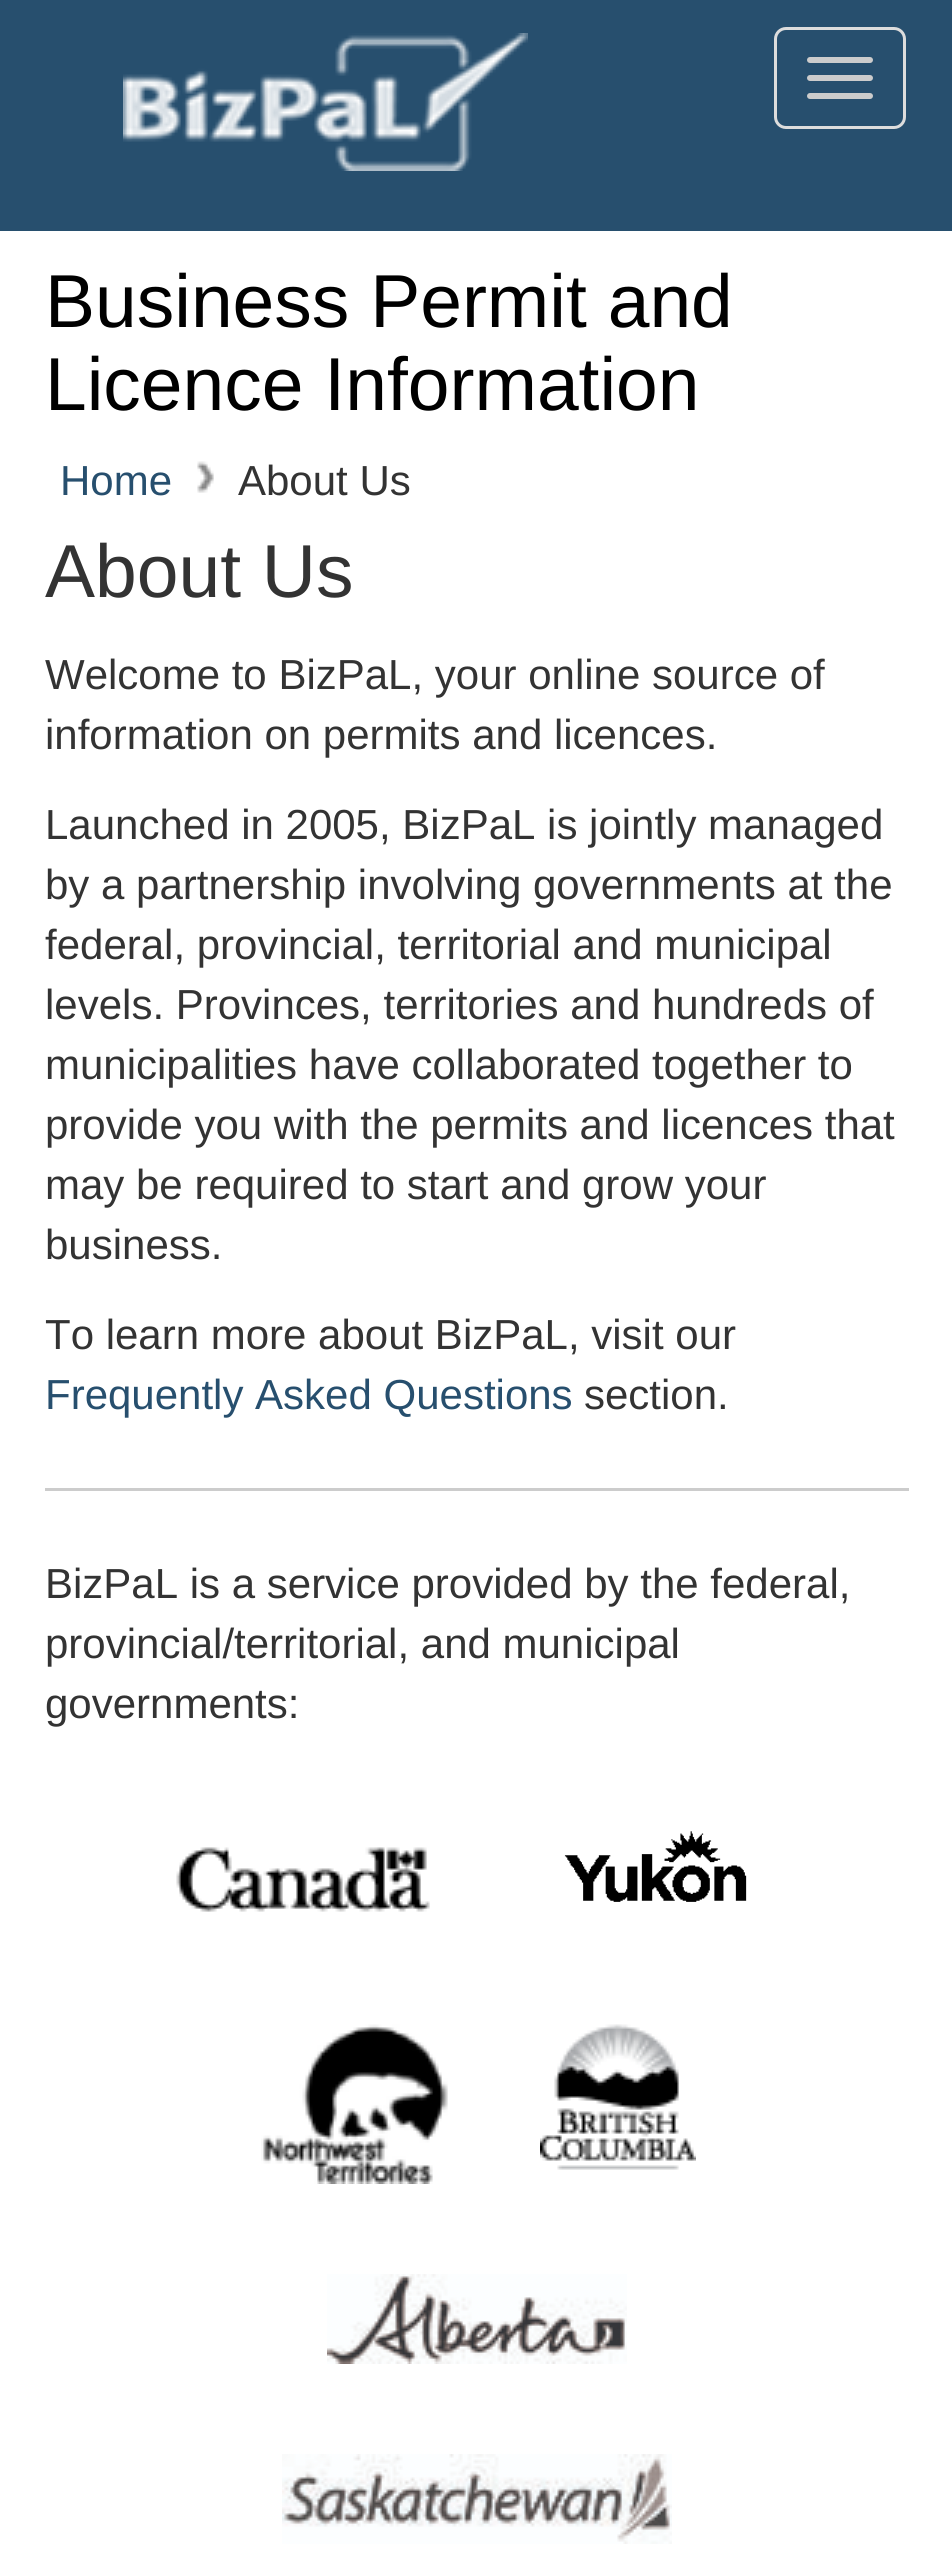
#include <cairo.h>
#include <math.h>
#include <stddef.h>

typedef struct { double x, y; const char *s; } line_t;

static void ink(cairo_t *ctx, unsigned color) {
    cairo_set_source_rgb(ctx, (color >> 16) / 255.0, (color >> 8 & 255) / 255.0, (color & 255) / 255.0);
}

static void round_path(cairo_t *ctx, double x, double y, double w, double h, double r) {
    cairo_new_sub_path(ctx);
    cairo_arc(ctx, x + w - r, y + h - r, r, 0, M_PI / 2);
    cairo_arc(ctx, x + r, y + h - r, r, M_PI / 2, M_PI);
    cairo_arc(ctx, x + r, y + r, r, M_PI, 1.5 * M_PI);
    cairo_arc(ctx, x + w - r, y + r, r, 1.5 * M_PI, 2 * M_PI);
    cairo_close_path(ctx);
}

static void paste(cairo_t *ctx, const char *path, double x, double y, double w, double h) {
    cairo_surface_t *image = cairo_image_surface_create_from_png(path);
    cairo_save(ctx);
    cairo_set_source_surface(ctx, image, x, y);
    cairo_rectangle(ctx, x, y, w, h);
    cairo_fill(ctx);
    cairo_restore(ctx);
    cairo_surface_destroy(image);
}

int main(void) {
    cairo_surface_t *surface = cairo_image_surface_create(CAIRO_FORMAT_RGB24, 952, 2553);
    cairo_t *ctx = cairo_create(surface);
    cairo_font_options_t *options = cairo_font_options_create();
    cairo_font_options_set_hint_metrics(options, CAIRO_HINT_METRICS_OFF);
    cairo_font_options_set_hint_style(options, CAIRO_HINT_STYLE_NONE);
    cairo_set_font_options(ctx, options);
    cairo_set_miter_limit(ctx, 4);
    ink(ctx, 0xFFFFFF);
    cairo_paint(ctx);
    ink(ctx, 0x274F6E);
    cairo_rectangle(ctx, 0, 0, 952, 231);
    cairo_fill(ctx);
    paste(ctx, "media/1.png", 123, 33, 405, 138);
    round_path(ctx, 775.5, 28.5, 129, 99, 10.5);
    ink(ctx, 0xDDDDDD);
    cairo_set_line_width(ctx, 3);
    cairo_stroke(ctx);
    ink(ctx, 0xCCCCCC);
    round_path(ctx, 807, 57, 66, 6, 3);
    cairo_fill(ctx);
    round_path(ctx, 807, 75, 66, 6, 3);
    cairo_fill(ctx);
    round_path(ctx, 807, 93, 66, 6, 3);
    cairo_fill(ctx);
    cairo_select_font_face(ctx, "Liberation Sans", CAIRO_FONT_SLANT_NORMAL, CAIRO_FONT_WEIGHT_NORMAL);
    cairo_set_font_size(ctx, 75);
    ink(ctx, 0x000000);
    cairo_move_to(ctx, 45, 327);
    cairo_show_text(ctx, "Business Permit and");
    cairo_move_to(ctx, 45, 410);
    cairo_show_text(ctx, "Licence Information");
    cairo_set_font_size(ctx, 42);
    ink(ctx, 0x274F6E);
    cairo_move_to(ctx, 60, 495);
    cairo_show_text(ctx, "Home");
    paste(ctx, "media/2.png", 197, 461, 17, 32);
    ink(ctx, 0x333333);
    cairo_move_to(ctx, 238, 495);
    cairo_show_text(ctx, "About Us");
    cairo_set_font_size(ctx, 75);
    cairo_move_to(ctx, 45, 597);
    cairo_show_text(ctx, "About Us");
    cairo_set_font_size(ctx, 42);
    {
        static const line_t items[] = {
            {45, 689, "Welcome to BizPaL, your online source of"},
            {45, 749, "information on permits and licences."},
            {45, 839, "Launched in 2005, BizPaL is jointly managed"},
            {45, 899, "by a partnership involving governments at the"},
            {45, 959, "federal, provincial, territorial and municipal"},
            {45, 1019, "levels. Provinces, territories and hundreds of"},
            {45, 1079, "municipalities have collaborated together to"},
            {45, 1139, "provide you with the permits and licences that"},
            {45, 1199, "may be required to start and grow your"},
            {45, 1259, "business."},
            {45, 1349, "To learn more about BizPaL, visit our"},
        };
        for (size_t i = 0; i < sizeof items / sizeof *items; i++) {
            cairo_move_to(ctx, items[i].x, items[i].y);
            cairo_show_text(ctx, items[i].s);
        }
    }
    ink(ctx, 0x274F6E);
    cairo_move_to(ctx, 45, 1409);
    cairo_show_text(ctx, "Frequently Asked Questions");
    ink(ctx, 0x333333);
    cairo_move_to(ctx, 584, 1409);
    cairo_show_text(ctx, "section.");
    ink(ctx, 0xCCCCCC);
    cairo_rectangle(ctx, 45, 1488, 864, 3);
    cairo_fill(ctx);
    ink(ctx, 0x333333);
    {
        static const line_t items[] = {
            {45, 1598, "BizPaL is a service provided by the federal,"},
            {45, 1658, "provincial/territorial, and municipal"},
            {45, 1718, "governments:"},
        };
        for (size_t i = 0; i < sizeof items / sizeof *items; i++) {
            cairo_move_to(ctx, items[i].x, items[i].y);
            cairo_show_text(ctx, items[i].s);
        }
    }
    paste(ctx, "media/3.png", 176, 1847, 254, 65);
    paste(ctx, "media/4.png", 564, 1831, 183, 71);
    paste(ctx, "media/5.png", 261, 2024, 187, 160);
    paste(ctx, "media/6.png", 540, 2024, 156, 146);
    paste(ctx, "media/7.png", 327, 2274, 300, 90);
    paste(ctx, "media/8.png", 282, 2454, 390, 90);
    cairo_surface_write_to_png(surface, "image.png");
    cairo_font_options_destroy(options);
    cairo_destroy(ctx);
    cairo_surface_destroy(surface);
    return 0;
}
